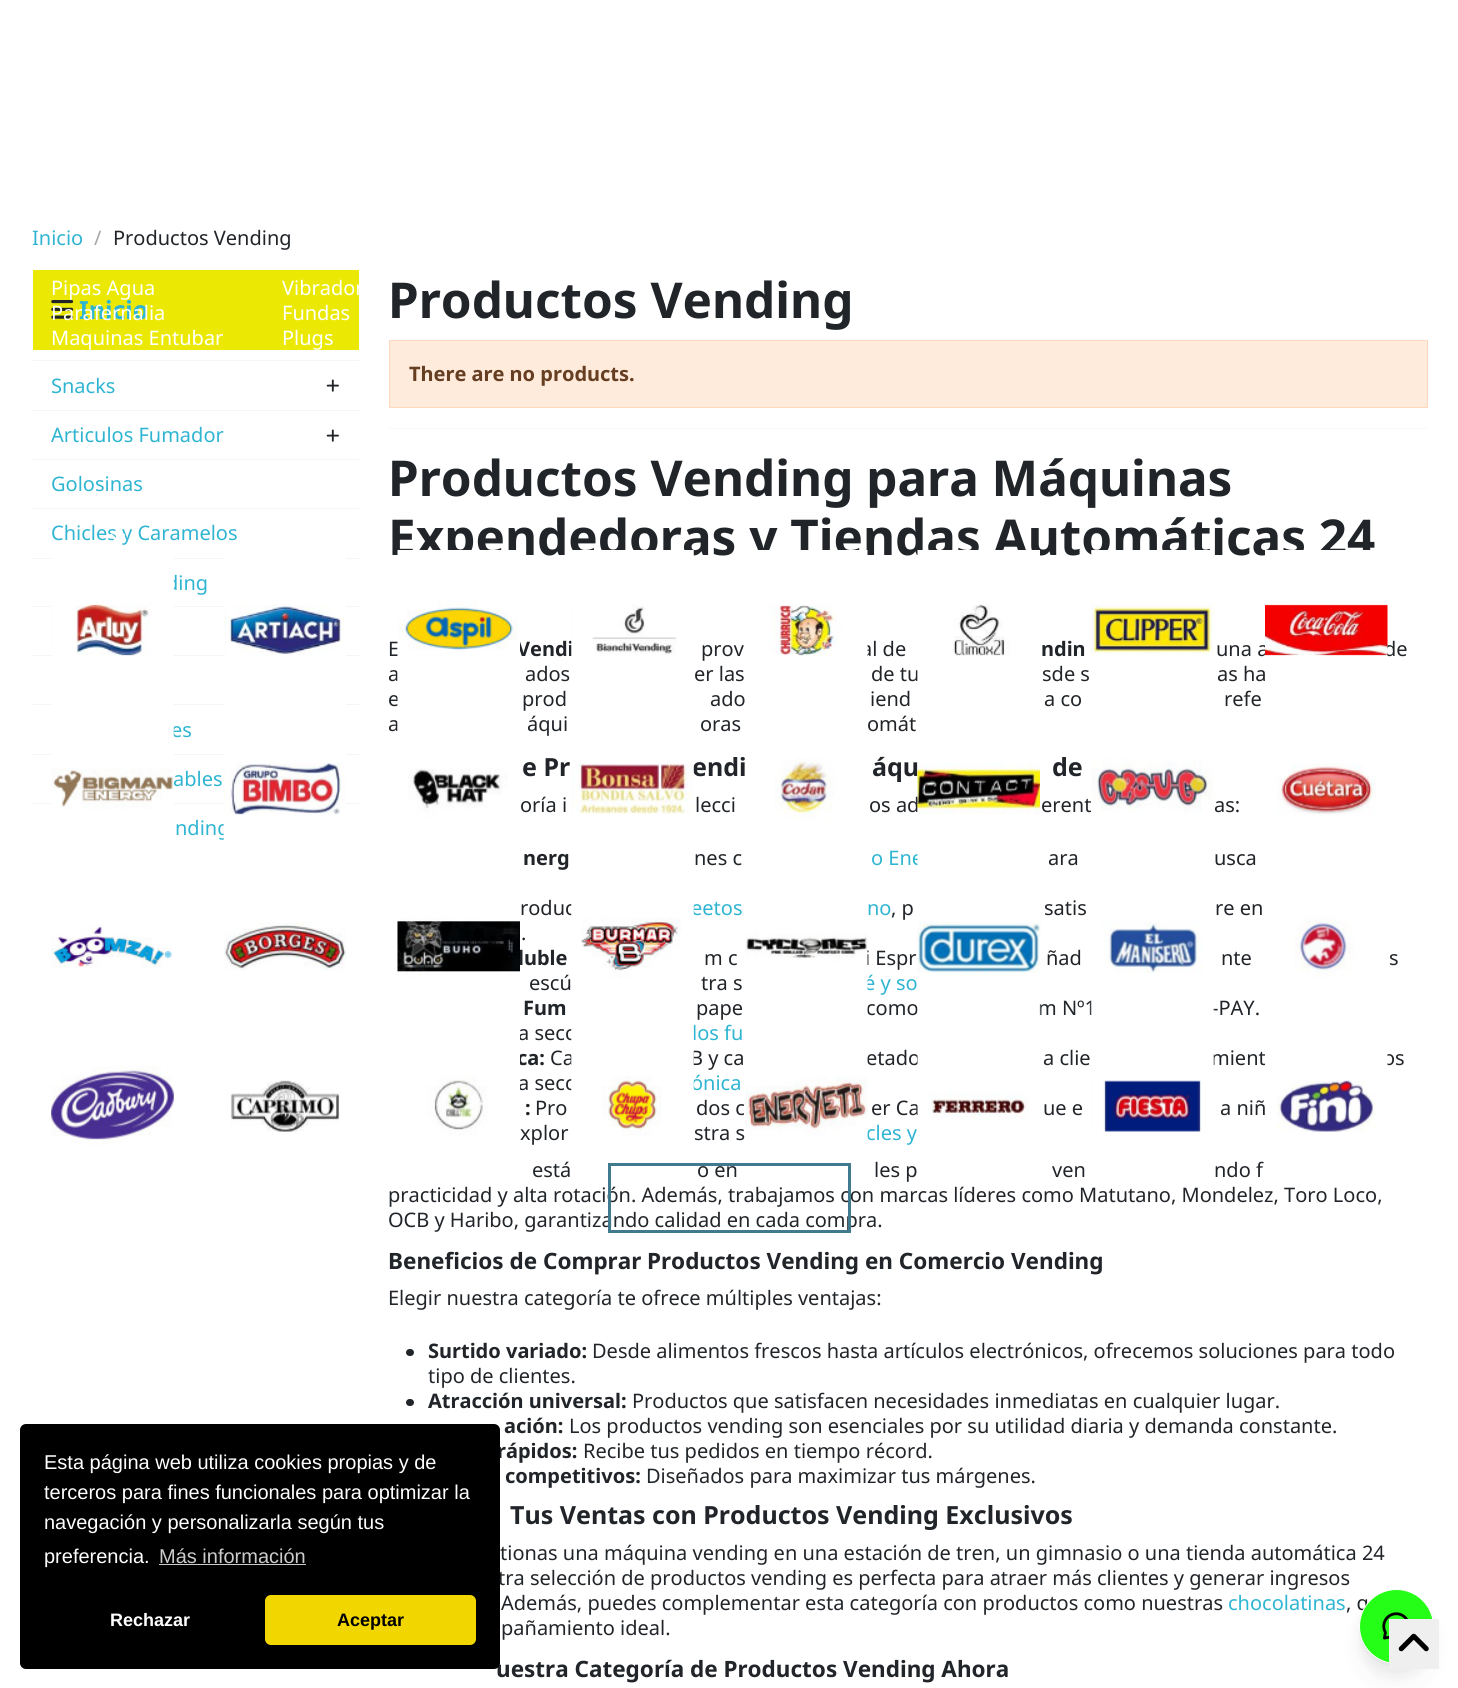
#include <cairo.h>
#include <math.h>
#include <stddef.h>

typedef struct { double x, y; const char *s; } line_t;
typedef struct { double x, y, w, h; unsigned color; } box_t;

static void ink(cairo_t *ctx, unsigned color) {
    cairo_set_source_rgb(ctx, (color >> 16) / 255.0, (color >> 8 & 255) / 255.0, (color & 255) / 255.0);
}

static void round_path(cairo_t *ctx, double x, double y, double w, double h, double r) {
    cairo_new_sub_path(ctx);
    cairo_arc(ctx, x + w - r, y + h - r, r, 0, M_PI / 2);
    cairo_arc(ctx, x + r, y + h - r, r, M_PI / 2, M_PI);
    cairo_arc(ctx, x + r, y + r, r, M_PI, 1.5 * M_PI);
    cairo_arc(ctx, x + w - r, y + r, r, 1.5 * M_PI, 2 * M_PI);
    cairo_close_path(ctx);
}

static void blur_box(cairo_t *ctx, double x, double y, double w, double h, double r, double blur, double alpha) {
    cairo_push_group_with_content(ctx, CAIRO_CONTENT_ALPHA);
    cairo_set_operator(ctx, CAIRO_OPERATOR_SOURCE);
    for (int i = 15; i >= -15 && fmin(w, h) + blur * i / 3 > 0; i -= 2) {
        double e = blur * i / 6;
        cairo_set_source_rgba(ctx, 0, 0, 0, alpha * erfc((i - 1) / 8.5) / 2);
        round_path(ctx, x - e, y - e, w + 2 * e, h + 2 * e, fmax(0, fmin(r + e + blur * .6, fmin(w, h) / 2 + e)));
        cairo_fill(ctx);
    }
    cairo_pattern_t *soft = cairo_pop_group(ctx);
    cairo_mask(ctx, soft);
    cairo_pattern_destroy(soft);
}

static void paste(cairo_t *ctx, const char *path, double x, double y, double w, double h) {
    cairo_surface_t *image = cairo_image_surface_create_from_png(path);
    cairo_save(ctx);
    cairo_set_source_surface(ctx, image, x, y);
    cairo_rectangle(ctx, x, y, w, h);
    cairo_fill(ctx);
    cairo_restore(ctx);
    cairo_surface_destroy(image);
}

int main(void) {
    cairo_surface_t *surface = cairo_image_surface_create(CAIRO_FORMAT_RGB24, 1458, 1688);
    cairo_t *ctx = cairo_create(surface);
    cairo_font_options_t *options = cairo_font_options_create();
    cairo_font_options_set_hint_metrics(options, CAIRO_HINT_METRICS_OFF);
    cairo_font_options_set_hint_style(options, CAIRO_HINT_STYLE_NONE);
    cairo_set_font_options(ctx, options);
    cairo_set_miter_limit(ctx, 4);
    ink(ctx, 0xFFFFFF);
    cairo_paint(ctx);
    cairo_select_font_face(ctx, "Noto Sans", CAIRO_FONT_SLANT_NORMAL, CAIRO_FONT_WEIGHT_NORMAL);
    cairo_set_font_size(ctx, 20);
    ink(ctx, 0x2FB5D2);
    cairo_move_to(ctx, 32, 245);
    cairo_show_text(ctx, "Inicio");
    ink(ctx, 0xA6A8A9);
    cairo_move_to(ctx, 94, 245);
    cairo_show_text(ctx, "/");
    ink(ctx, 0x212529);
    cairo_move_to(ctx, 113, 245);
    cairo_show_text(ctx, "Productos Vending");
    ink(ctx, 0xEBE904);
    cairo_rectangle(ctx, 33, 270, 326, 80);
    cairo_fill(ctx);
    paste(ctx, "media/1.png", 51, 300, 23, 19);
    cairo_select_font_face(ctx, "Noto Sans", CAIRO_FONT_SLANT_NORMAL, CAIRO_FONT_WEIGHT_BOLD);
    cairo_set_font_size(ctx, 25);
    ink(ctx, 0x2FB5D2);
    cairo_move_to(ctx, 79, 319);
    cairo_show_text(ctx, "Inicio");
    ink(ctx, 0xF5F5F5);
    cairo_rectangle(ctx, 33, 360, 326, 1);
    cairo_fill(ctx);
    cairo_select_font_face(ctx, "Noto Sans", CAIRO_FONT_SLANT_NORMAL, CAIRO_FONT_WEIGHT_NORMAL);
    cairo_set_font_size(ctx, 20);
    ink(ctx, 0x2FB5D2);
    cairo_move_to(ctx, 51, 393);
    cairo_show_text(ctx, "Snacks");
    paste(ctx, "media/2.png", 326, 379, 13, 13);
    ink(ctx, 0xF5F5F5);
    cairo_rectangle(ctx, 33, 410, 326, 1);
    cairo_fill(ctx);
    ink(ctx, 0x2FB5D2);
    cairo_move_to(ctx, 51, 442);
    cairo_show_text(ctx, "Articulos Fumador");
    paste(ctx, "media/2.png", 326, 429, 13, 13);
    ink(ctx, 0xF5F5F5);
    cairo_rectangle(ctx, 33, 459, 326, 1);
    cairo_fill(ctx);
    ink(ctx, 0x2FB5D2);
    cairo_move_to(ctx, 51, 491);
    cairo_show_text(ctx, "Golosinas");
    ink(ctx, 0xF5F5F5);
    cairo_rectangle(ctx, 33, 508, 326, 1);
    cairo_fill(ctx);
    ink(ctx, 0x2FB5D2);
    cairo_move_to(ctx, 51, 540);
    cairo_show_text(ctx, "Chicles y Caramelos");
    ink(ctx, 0xF5F5F5);
    cairo_rectangle(ctx, 33, 558, 326, 1);
    cairo_fill(ctx);
    ink(ctx, 0x2FB5D2);
    cairo_move_to(ctx, 166, 590);
    cairo_show_text(ctx, "ding");
    {
        static const box_t items[] = {
            {33, 606, 326, 1, 0xF5F5F5},
            {33, 655, 326, 1, 0xF5F5F5},
            {33, 704, 326, 1, 0xF5F5F5},
        };
        for (size_t i = 0; i < sizeof items / sizeof *items; i++) {
            ink(ctx, items[i].color);
            cairo_rectangle(ctx, items[i].x, items[i].y, items[i].w, items[i].h);
            cairo_fill(ctx);
        }
    }
    ink(ctx, 0x2FB5D2);
    cairo_move_to(ctx, 171, 737);
    cairo_show_text(ctx, "es");
    ink(ctx, 0xF5F5F5);
    cairo_rectangle(ctx, 33, 754, 326, 1);
    cairo_fill(ctx);
    ink(ctx, 0x2FB5D2);
    cairo_move_to(ctx, 173, 786);
    cairo_show_text(ctx, "ables");
    ink(ctx, 0xF5F5F5);
    cairo_rectangle(ctx, 33, 803, 326, 1);
    cairo_fill(ctx);
    ink(ctx, 0x2FB5D2);
    cairo_move_to(ctx, 175, 835);
    cairo_show_text(ctx, "nding");
    cairo_select_font_face(ctx, "Noto Sans", CAIRO_FONT_SLANT_NORMAL, CAIRO_FONT_WEIGHT_BOLD);
    cairo_set_font_size(ctx, 49.4);
    ink(ctx, 0x212529);
    cairo_move_to(ctx, 388, 318);
    cairo_show_text(ctx, "Productos Vending");
    ink(ctx, 0xFFEBDC);
    cairo_rectangle(ctx, 389.5, 340.5, 1038, 67);
    cairo_fill_preserve(ctx);
    ink(ctx, 0xFFD7BA);
    cairo_set_line_width(ctx, 1);
    cairo_stroke(ctx);
    cairo_set_font_size(ctx, 20);
    ink(ctx, 0x663E21);
    cairo_move_to(ctx, 409, 381);
    cairo_show_text(ctx, "There are no products.");
    ink(ctx, 0xF9F9F9);
    cairo_rectangle(ctx, 389, 428, 1039, 1);
    cairo_fill(ctx);
    cairo_set_font_size(ctx, 49.4);
    ink(ctx, 0x212529);
    cairo_move_to(ctx, 388, 496);
    cairo_show_text(ctx, "Productos Vending para Máquinas");
    cairo_move_to(ctx, 388, 555);
    cairo_show_text(ctx, "Expendedoras y Tiendas Automáticas 24");
    cairo_select_font_face(ctx, "Noto Sans", CAIRO_FONT_SLANT_NORMAL, CAIRO_FONT_WEIGHT_NORMAL);
    cairo_set_font_size(ctx, 20);
    cairo_move_to(ctx, 388, 656);
    cairo_show_text(ctx, "E");
    cairo_select_font_face(ctx, "Noto Sans", CAIRO_FONT_SLANT_NORMAL, CAIRO_FONT_WEIGHT_BOLD);
    cairo_move_to(ctx, 517, 656);
    cairo_show_text(ctx, "Vendi");
    cairo_select_font_face(ctx, "Noto Sans", CAIRO_FONT_SLANT_NORMAL, CAIRO_FONT_WEIGHT_NORMAL);
    cairo_move_to(ctx, 701, 656);
    cairo_show_text(ctx, "prov");
    cairo_move_to(ctx, 861, 656);
    cairo_show_text(ctx, "al de");
    cairo_select_font_face(ctx, "Noto Sans", CAIRO_FONT_SLANT_NORMAL, CAIRO_FONT_WEIGHT_BOLD);
    cairo_move_to(ctx, 1041, 656);
    cairo_show_text(ctx, "ndin");
    cairo_select_font_face(ctx, "Noto Sans", CAIRO_FONT_SLANT_NORMAL, CAIRO_FONT_WEIGHT_NORMAL);
    {
        static const line_t items[] = {
            {1216, 656, "una a"},
            {1384, 656, "de"},
            {388, 681, "a"},
            {525, 681, "ados"},
            {694, 681, "er las"},
            {871, 681, "de tu"},
            {1042, 681, "sde s"},
            {1217, 681, "as ha"},
            {388, 706, "e"},
            {522, 706, "prod"},
            {710, 706, "ado"},
            {870, 706, "iend"},
            {1044, 706, "a co"},
            {1224, 706, "refe"},
            {388, 731, "a"},
            {527, 731, "áqui"},
            {700, 731, "oras"},
            {867, 731, "omát"},
        };
        for (size_t i = 0; i < sizeof items / sizeof *items; i++) {
            cairo_move_to(ctx, items[i].x, items[i].y);
            cairo_show_text(ctx, items[i].s);
        }
    }
    cairo_select_font_face(ctx, "Noto Sans", CAIRO_FONT_SLANT_NORMAL, CAIRO_FONT_WEIGHT_BOLD);
    cairo_set_font_size(ctx, 25);
    {
        static const line_t items[] = {
            {522, 776, "e Pr"},
            {692, 776, "endi"},
            {872, 776, "áqu"},
            {1052, 776, "de"},
        };
        for (size_t i = 0; i < sizeof items / sizeof *items; i++) {
            cairo_move_to(ctx, items[i].x, items[i].y);
            cairo_show_text(ctx, items[i].s);
        }
    }
    cairo_select_font_face(ctx, "Noto Sans", CAIRO_FONT_SLANT_NORMAL, CAIRO_FONT_WEIGHT_NORMAL);
    cairo_set_font_size(ctx, 20);
    {
        static const line_t items[] = {
            {520, 812, "oría i"},
            {695, 812, "lecci"},
            {869, 812, "os ad"},
            {1041, 812, "erent"},
            {1214, 812, "as:"},
        };
        for (size_t i = 0; i < sizeof items / sizeof *items; i++) {
            cairo_move_to(ctx, items[i].x, items[i].y);
            cairo_show_text(ctx, items[i].s);
        }
    }
    cairo_select_font_face(ctx, "Noto Sans", CAIRO_FONT_SLANT_NORMAL, CAIRO_FONT_WEIGHT_BOLD);
    cairo_move_to(ctx, 523, 865);
    cairo_show_text(ctx, "nerg");
    cairo_select_font_face(ctx, "Noto Sans", CAIRO_FONT_SLANT_NORMAL, CAIRO_FONT_WEIGHT_NORMAL);
    cairo_move_to(ctx, 694, 865);
    cairo_show_text(ctx, "nes c");
    ink(ctx, 0x2FB5D2);
    cairo_move_to(ctx, 871, 865);
    cairo_show_text(ctx, "o Ene");
    ink(ctx, 0x212529);
    {
        static const line_t items[] = {
            {1048, 865, "ara"},
            {1214, 865, "usca"},
            {520, 915, "roduc"},
        };
        for (size_t i = 0; i < sizeof items / sizeof *items; i++) {
            cairo_move_to(ctx, items[i].x, items[i].y);
            cairo_show_text(ctx, items[i].s);
        }
    }
    ink(ctx, 0x2FB5D2);
    cairo_move_to(ctx, 691, 915);
    cairo_show_text(ctx, "eetos");
    cairo_move_to(ctx, 867, 915);
    cairo_show_text(ctx, "no");
    ink(ctx, 0x212529);
    {
        static const line_t items[] = {
            {891, 915, ", p"},
            {1044, 915, "satis"},
            {1215, 915, "re en"},
            {521, 940, "."},
        };
        for (size_t i = 0; i < sizeof items / sizeof *items; i++) {
            cairo_move_to(ctx, items[i].x, items[i].y);
            cairo_show_text(ctx, items[i].s);
        }
    }
    cairo_select_font_face(ctx, "Noto Sans", CAIRO_FONT_SLANT_NORMAL, CAIRO_FONT_WEIGHT_BOLD);
    cairo_move_to(ctx, 518, 965);
    cairo_show_text(ctx, "luble");
    cairo_select_font_face(ctx, "Noto Sans", CAIRO_FONT_SLANT_NORMAL, CAIRO_FONT_WEIGHT_NORMAL);
    {
        static const line_t items[] = {
            {704, 965, "m c"},
            {865, 965, "i Espr"},
            {1046, 965, "ñad"},
            {1221, 965, "nte"},
            {1389, 965, "s"},
            {529, 990, "escú"},
            {701, 990, "tra s"},
        };
        for (size_t i = 0; i < sizeof items / sizeof *items; i++) {
            cairo_move_to(ctx, items[i].x, items[i].y);
            cairo_show_text(ctx, items[i].s);
        }
    }
    ink(ctx, 0x2FB5D2);
    cairo_move_to(ctx, 864, 990);
    cairo_show_text(ctx, "é y so");
    cairo_select_font_face(ctx, "Noto Sans", CAIRO_FONT_SLANT_NORMAL, CAIRO_FONT_WEIGHT_BOLD);
    ink(ctx, 0x212529);
    cairo_move_to(ctx, 523, 1015);
    cairo_show_text(ctx, "Fum");
    cairo_select_font_face(ctx, "Noto Sans", CAIRO_FONT_SLANT_NORMAL, CAIRO_FONT_WEIGHT_NORMAL);
    {
        static const line_t items[] = {
            {696, 1015, "pape"},
            {866, 1015, "como"},
            {1038, 1015, "m Nº1"},
            {1212, 1015, "-PAY."},
            {518, 1040, "a secc"},
        };
        for (size_t i = 0; i < sizeof items / sizeof *items; i++) {
            cairo_move_to(ctx, items[i].x, items[i].y);
            cairo_show_text(ctx, items[i].s);
        }
    }
    ink(ctx, 0x2FB5D2);
    cairo_move_to(ctx, 692, 1040);
    cairo_show_text(ctx, "los fu");
    cairo_select_font_face(ctx, "Noto Sans", CAIRO_FONT_SLANT_NORMAL, CAIRO_FONT_WEIGHT_BOLD);
    ink(ctx, 0x212529);
    cairo_move_to(ctx, 517, 1065);
    cairo_show_text(ctx, "ca:");
    cairo_select_font_face(ctx, "Noto Sans", CAIRO_FONT_SLANT_NORMAL, CAIRO_FONT_WEIGHT_NORMAL);
    {
        static const line_t items[] = {
            {550, 1065, "Ca"},
            {690, 1065, "B y ca"},
            {866, 1065, "etado"},
            {1043, 1065, "a clie"},
            {1211, 1065, "mient"},
            {1383, 1065, "os"},
            {518, 1090, "a secc"},
        };
        for (size_t i = 0; i < sizeof items / sizeof *items; i++) {
            cairo_move_to(ctx, items[i].x, items[i].y);
            cairo_show_text(ctx, items[i].s);
        }
    }
    ink(ctx, 0x2FB5D2);
    cairo_move_to(ctx, 691, 1090);
    cairo_show_text(ctx, "ónica");
    cairo_select_font_face(ctx, "Noto Sans", CAIRO_FONT_SLANT_NORMAL, CAIRO_FONT_WEIGHT_BOLD);
    ink(ctx, 0x212529);
    cairo_move_to(ctx, 525, 1115);
    cairo_show_text(ctx, ":");
    cairo_select_font_face(ctx, "Noto Sans", CAIRO_FONT_SLANT_NORMAL, CAIRO_FONT_WEIGHT_NORMAL);
    {
        static const line_t items[] = {
            {535, 1115, "Pro"},
            {696, 1115, "dos c"},
            {871, 1115, "er Ca"},
            {1043, 1115, "ue e"},
            {1220, 1115, "a niñ"},
            {520, 1140, "xplor"},
            {694, 1140, "stra s"},
        };
        for (size_t i = 0; i < sizeof items / sizeof *items; i++) {
            cairo_move_to(ctx, items[i].x, items[i].y);
            cairo_show_text(ctx, items[i].s);
        }
    }
    ink(ctx, 0x2FB5D2);
    cairo_move_to(ctx, 866, 1140);
    cairo_show_text(ctx, "cles y");
    ink(ctx, 0x212529);
    {
        static const line_t items[] = {
            {532, 1177, "está"},
            {697, 1177, "o en"},
            {874, 1177, "les p"},
            {1052, 1177, "ven"},
            {1214, 1177, "ndo f"},
            {388, 1202, "practicidad y alta rotación. Además, trabajamos con marcas líderes como Matutano, Mondelez, Toro Loco,"},
            {388, 1227, "OCB y Haribo, garantizando calidad en cada compra."},
        };
        for (size_t i = 0; i < sizeof items / sizeof *items; i++) {
            cairo_move_to(ctx, items[i].x, items[i].y);
            cairo_show_text(ctx, items[i].s);
        }
    }
    cairo_select_font_face(ctx, "Noto Sans", CAIRO_FONT_SLANT_NORMAL, CAIRO_FONT_WEIGHT_BOLD);
    cairo_set_font_size(ctx, 22.5);
    cairo_move_to(ctx, 388, 1269);
    cairo_show_text(ctx, "Beneficios de Comprar Productos Vending en Comercio Vending");
    cairo_select_font_face(ctx, "Noto Sans", CAIRO_FONT_SLANT_NORMAL, CAIRO_FONT_WEIGHT_NORMAL);
    cairo_set_font_size(ctx, 20);
    cairo_move_to(ctx, 388, 1305);
    cairo_show_text(ctx, "Elegir nuestra categoría te ofrece múltiples ventajas:");
    round_path(ctx, 406, 1349, 8, 7, 3.5);
    cairo_fill(ctx);
    cairo_select_font_face(ctx, "Noto Sans", CAIRO_FONT_SLANT_NORMAL, CAIRO_FONT_WEIGHT_BOLD);
    cairo_move_to(ctx, 428, 1358);
    cairo_show_text(ctx, "Surtido variado:");
    cairo_select_font_face(ctx, "Noto Sans", CAIRO_FONT_SLANT_NORMAL, CAIRO_FONT_WEIGHT_NORMAL);
    cairo_move_to(ctx, 592, 1358);
    cairo_show_text(ctx, "Desde alimentos frescos hasta artículos electrónicos, ofrecemos soluciones para todo");
    cairo_move_to(ctx, 428, 1383);
    cairo_show_text(ctx, "tipo de clientes.");
    round_path(ctx, 406, 1399, 8, 7, 3.5);
    cairo_fill(ctx);
    cairo_select_font_face(ctx, "Noto Sans", CAIRO_FONT_SLANT_NORMAL, CAIRO_FONT_WEIGHT_BOLD);
    cairo_move_to(ctx, 428, 1408);
    cairo_show_text(ctx, "Atracción universal:");
    cairo_select_font_face(ctx, "Noto Sans", CAIRO_FONT_SLANT_NORMAL, CAIRO_FONT_WEIGHT_NORMAL);
    cairo_move_to(ctx, 632, 1408);
    cairo_show_text(ctx, "Productos que satisfacen necesidades inmediatas en cualquier lugar.");
    cairo_select_font_face(ctx, "Noto Sans", CAIRO_FONT_SLANT_NORMAL, CAIRO_FONT_WEIGHT_BOLD);
    cairo_move_to(ctx, 504, 1433);
    cairo_show_text(ctx, "ación:");
    cairo_select_font_face(ctx, "Noto Sans", CAIRO_FONT_SLANT_NORMAL, CAIRO_FONT_WEIGHT_NORMAL);
    cairo_move_to(ctx, 569, 1433);
    cairo_show_text(ctx, "Los productos vending son esenciales por su utilidad diaria y demanda constante.");
    cairo_select_font_face(ctx, "Noto Sans", CAIRO_FONT_SLANT_NORMAL, CAIRO_FONT_WEIGHT_BOLD);
    cairo_move_to(ctx, 497, 1458);
    cairo_show_text(ctx, "rápidos:");
    cairo_select_font_face(ctx, "Noto Sans", CAIRO_FONT_SLANT_NORMAL, CAIRO_FONT_WEIGHT_NORMAL);
    cairo_move_to(ctx, 583, 1458);
    cairo_show_text(ctx, "Recibe tus pedidos en tiempo récord.");
    cairo_select_font_face(ctx, "Noto Sans", CAIRO_FONT_SLANT_NORMAL, CAIRO_FONT_WEIGHT_BOLD);
    cairo_move_to(ctx, 505, 1483);
    cairo_show_text(ctx, "competitivos:");
    cairo_select_font_face(ctx, "Noto Sans", CAIRO_FONT_SLANT_NORMAL, CAIRO_FONT_WEIGHT_NORMAL);
    cairo_move_to(ctx, 646, 1483);
    cairo_show_text(ctx, "Diseñados para maximizar tus márgenes.");
    cairo_select_font_face(ctx, "Noto Sans", CAIRO_FONT_SLANT_NORMAL, CAIRO_FONT_WEIGHT_BOLD);
    cairo_set_font_size(ctx, 25);
    cairo_move_to(ctx, 510, 1524);
    cairo_show_text(ctx, "Tus Ventas con Productos Vending Exclusivos");
    cairo_select_font_face(ctx, "Noto Sans", CAIRO_FONT_SLANT_NORMAL, CAIRO_FONT_WEIGHT_NORMAL);
    cairo_set_font_size(ctx, 20);
    {
        static const line_t items[] = {
            {500, 1560, "tionas una máquina vending en una estación de tren, un gimnasio o una tienda automática 24"},
            {498, 1585, "tra selección de productos vending es perfecta para atraer más clientes y generar ingresos"},
            {501, 1610, "Además, puedes complementar esta categoría con productos como nuestras"},
        };
        for (size_t i = 0; i < sizeof items / sizeof *items; i++) {
            cairo_move_to(ctx, items[i].x, items[i].y);
            cairo_show_text(ctx, items[i].s);
        }
    }
    ink(ctx, 0x2FB5D2);
    cairo_move_to(ctx, 1228, 1610);
    cairo_show_text(ctx, "chocolatinas");
    ink(ctx, 0x212529);
    cairo_move_to(ctx, 1346, 1610);
    cairo_show_text(ctx, ", q");
    cairo_move_to(ctx, 501, 1635);
    cairo_show_text(ctx, "pañamiento ideal.");
    cairo_select_font_face(ctx, "Noto Sans", CAIRO_FONT_SLANT_NORMAL, CAIRO_FONT_WEIGHT_BOLD);
    cairo_set_font_size(ctx, 22.5);
    cairo_move_to(ctx, 496, 1677);
    cairo_show_text(ctx, "uestra Categoría de Productos Vending Ahora");
    cairo_select_font_face(ctx, "Noto Sans", CAIRO_FONT_SLANT_NORMAL, CAIRO_FONT_WEIGHT_NORMAL);
    cairo_set_font_size(ctx, 20);
    ink(ctx, 0xFFFFFF);
    {
        static const line_t items[] = {
            {51, 295, "Pipas Agua"},
            {51, 320, "Parafernalia"},
            {51, 345, "Maquinas Entubar"},
            {282, 295, "Vibrador"},
            {282, 320, "Fundas"},
            {282, 345, "Plugs"},
        };
        for (size_t i = 0; i < sizeof items / sizeof *items; i++) {
            cairo_move_to(ctx, items[i].x, items[i].y);
            cairo_show_text(ctx, items[i].s);
        }
    }
    paste(ctx, "media/3.png", 110, 533, 15, 7);
    paste(ctx, "media/4.png", 51, 558, 123, 147);
    paste(ctx, "media/5.png", 224, 558, 122, 147);
    paste(ctx, "media/6.png", 397, 550, 123, 159);
    paste(ctx, "media/7.png", 571, 550, 123, 159);
    paste(ctx, "media/8.png", 51, 721, 123, 115);
    paste(ctx, "media/9.png", 223, 723, 123, 117);
    paste(ctx, "media/10.png", 397, 709, 123, 157);
    paste(ctx, "media/11.png", 571, 709, 123, 159);
    paste(ctx, "media/12.png", 51, 925, 121, 43);
    paste(ctx, "media/13.png", 223, 922, 123, 49);
    paste(ctx, "media/14.png", 397, 874, 123, 153);
    paste(ctx, "media/15.png", 571, 867, 123, 160);
    paste(ctx, "media/16.png", 51, 1066, 123, 79);
    paste(ctx, "media/17.png", 230, 1080, 110, 52);
    paste(ctx, "media/18.png", 397, 1026, 123, 156);
    paste(ctx, "media/19.png", 571, 1026, 123, 156);
    paste(ctx, "media/20.png", 745, 550, 123, 159);
    paste(ctx, "media/21.png", 917, 550, 123, 157);
    paste(ctx, "media/22.png", 1091, 550, 123, 157);
    paste(ctx, "media/23.png", 1265, 550, 123, 157);
    paste(ctx, "media/24.png", 745, 715, 123, 151);
    paste(ctx, "media/25.png", 917, 716, 123, 152);
    paste(ctx, "media/26.png", 1091, 757, 123, 111);
    paste(ctx, "media/27.png", 1265, 763, 114, 105);
    paste(ctx, "media/28.png", 745, 899, 123, 128);
    paste(ctx, "media/29.png", 917, 867, 124, 149);
    paste(ctx, "media/30.png", 1090, 867, 125, 153);
    paste(ctx, "media/31.png", 1264, 867, 124, 149);
    paste(ctx, "media/32.png", 745, 1026, 123, 152);
    paste(ctx, "media/33.png", 917, 1049, 123, 133);
    paste(ctx, "media/34.png", 1091, 1050, 123, 132);
    paste(ctx, "media/35.png", 1265, 1049, 123, 131);
    cairo_rectangle(ctx, 609.5, 1164.5, 240, 67);
    ink(ctx, 0x417A8E);
    cairo_set_line_width(ctx, 3);
    cairo_stroke(ctx);
    ink(ctx, 0x000000);
    round_path(ctx, 20, 1424, 480, 245, 6);
    cairo_fill(ctx);
    cairo_select_font_face(ctx, "Liberation Sans", CAIRO_FONT_SLANT_NORMAL, CAIRO_FONT_WEIGHT_NORMAL);
    ink(ctx, 0xFFFFFF);
    {
        static const line_t items[] = {
            {44, 1469, "Esta página web utiliza cookies propias y de"},
            {44, 1499, "terceros para fines funcionales para optimizar la"},
            {44, 1529, "navegación y personalizarla según tus"},
            {44, 1563, "preferencia."},
        };
        for (size_t i = 0; i < sizeof items / sizeof *items; i++) {
            cairo_move_to(ctx, items[i].x, items[i].y);
            cairo_show_text(ctx, items[i].s);
        }
    }
    ink(ctx, 0xCCCCCC);
    cairo_move_to(ctx, 159, 1563);
    cairo_show_text(ctx, "Más información");
    cairo_rectangle(ctx, 159, 1564, 147, 1);
    cairo_fill(ctx);
    cairo_select_font_face(ctx, "Liberation Sans", CAIRO_FONT_SLANT_NORMAL, CAIRO_FONT_WEIGHT_BOLD);
    cairo_set_font_size(ctx, 18);
    ink(ctx, 0xFFFFFF);
    cairo_move_to(ctx, 110, 1626);
    cairo_show_text(ctx, "Rechazar");
    ink(ctx, 0xF1D600);
    round_path(ctx, 265, 1595, 211, 50, 6);
    cairo_fill(ctx);
    ink(ctx, 0x000000);
    cairo_move_to(ctx, 337, 1626);
    cairo_show_text(ctx, "Aceptar");
    ink(ctx, 0x202020);
    blur_box(ctx, 1359, 1609, 75, 75, 37.5, 10, 0.05);
    ink(ctx, 0x2A2A2A);
    blur_box(ctx, 1359, 1599, 75, 75, 37.5, 5, 0.05);
    ink(ctx, 0x2D2D2D);
    blur_box(ctx, 1359, 1591, 75, 75, 37.5, 1, 0.05);
    ink(ctx, 0x25FE16);
    cairo_arc(ctx, 1396.5, 1626.5, 37, 0, 2 * M_PI);
    cairo_fill_preserve(ctx);
    ink(ctx, 0xFFFFFF);
    cairo_set_line_width(ctx, 1);
    cairo_stroke(ctx);
    paste(ctx, "media/36.png", 1382, 1612, 26, 28);
    ink(ctx, 0xEFEFEF);
    cairo_rectangle(ctx, 1389, 1619, 50, 50);
    cairo_fill(ctx);
    paste(ctx, "media/37.png", 1398, 1633, 31, 19);
    cairo_surface_write_to_png(surface, "image.png");
    cairo_font_options_destroy(options);
    cairo_destroy(ctx);
    cairo_surface_destroy(surface);
    return 0;
}
